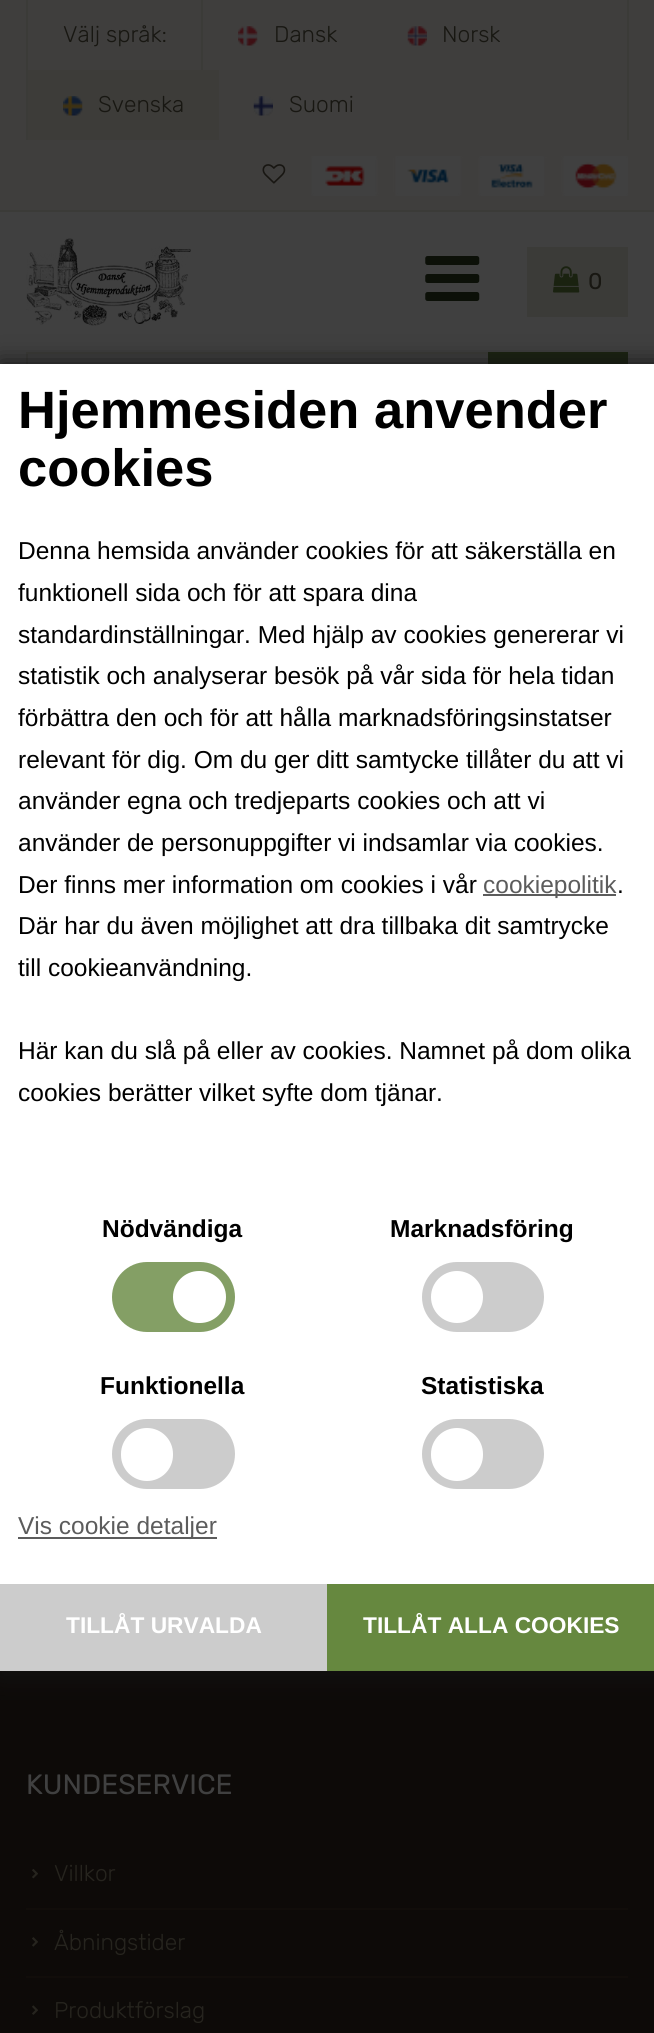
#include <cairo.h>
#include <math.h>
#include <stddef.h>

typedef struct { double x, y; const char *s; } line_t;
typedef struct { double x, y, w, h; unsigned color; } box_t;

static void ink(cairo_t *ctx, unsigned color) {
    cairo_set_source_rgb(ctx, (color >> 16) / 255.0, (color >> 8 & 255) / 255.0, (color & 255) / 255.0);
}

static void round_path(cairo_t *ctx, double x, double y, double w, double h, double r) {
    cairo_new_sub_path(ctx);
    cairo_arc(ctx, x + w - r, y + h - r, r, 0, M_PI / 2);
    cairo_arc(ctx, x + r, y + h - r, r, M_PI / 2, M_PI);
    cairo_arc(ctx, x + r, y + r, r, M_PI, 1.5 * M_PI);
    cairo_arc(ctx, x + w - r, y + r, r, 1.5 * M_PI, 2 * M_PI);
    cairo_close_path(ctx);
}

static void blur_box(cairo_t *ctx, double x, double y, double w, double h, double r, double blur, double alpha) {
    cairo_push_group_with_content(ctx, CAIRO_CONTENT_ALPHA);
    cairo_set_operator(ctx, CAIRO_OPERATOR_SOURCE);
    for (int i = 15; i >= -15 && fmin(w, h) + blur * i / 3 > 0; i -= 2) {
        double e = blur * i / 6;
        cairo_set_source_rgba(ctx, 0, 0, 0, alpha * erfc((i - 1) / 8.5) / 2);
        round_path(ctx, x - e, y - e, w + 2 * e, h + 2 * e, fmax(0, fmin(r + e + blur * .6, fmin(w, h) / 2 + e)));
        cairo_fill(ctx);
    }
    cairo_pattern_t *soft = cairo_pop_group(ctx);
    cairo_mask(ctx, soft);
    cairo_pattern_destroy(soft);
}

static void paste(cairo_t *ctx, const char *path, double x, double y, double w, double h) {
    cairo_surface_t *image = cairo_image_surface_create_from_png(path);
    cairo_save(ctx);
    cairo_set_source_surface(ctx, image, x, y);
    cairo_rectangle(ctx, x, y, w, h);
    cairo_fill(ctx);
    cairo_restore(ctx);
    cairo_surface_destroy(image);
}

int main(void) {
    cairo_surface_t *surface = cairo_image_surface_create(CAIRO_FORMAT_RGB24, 654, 2033);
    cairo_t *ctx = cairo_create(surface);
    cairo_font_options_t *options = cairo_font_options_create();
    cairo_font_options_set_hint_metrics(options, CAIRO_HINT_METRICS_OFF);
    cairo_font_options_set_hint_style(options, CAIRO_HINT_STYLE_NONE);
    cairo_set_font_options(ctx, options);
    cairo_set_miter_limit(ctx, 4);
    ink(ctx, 0x3F3E3D);
    cairo_paint(ctx);
    {
        static const box_t items[] = {
            {0, 210, 654, 2, 0x3B3B38},
            {627, 0, 2, 140, 0x3B3B38},
            {26, 0, 2, 140, 0x3B3B38},
            {201, 0, 2, 70, 0x3B3B38},
        };
        for (size_t i = 0; i < sizeof items / sizeof *items; i++) {
            ink(ctx, items[i].color);
            cairo_rectangle(ctx, items[i].x, items[i].y, items[i].w, items[i].h);
            cairo_fill(ctx);
        }
    }
    cairo_select_font_face(ctx, "Rubik Light", CAIRO_FONT_SLANT_NORMAL, CAIRO_FONT_WEIGHT_NORMAL);
    cairo_set_font_size(ctx, 22.75);
    ink(ctx, 0x181712);
    cairo_move_to(ctx, 63, 42);
    cairo_show_text(ctx, "Välj språk:");
    paste(ctx, "media/1.png", 238, 26, 20, 20);
    cairo_move_to(ctx, 274, 42);
    cairo_show_text(ctx, "Dansk");
    paste(ctx, "media/2.png", 407, 26, 20, 20);
    cairo_move_to(ctx, 442, 42);
    cairo_show_text(ctx, "Norsk");
    ink(ctx, 0x3D3C39);
    cairo_rectangle(ctx, 28, 70, 191, 70);
    cairo_fill(ctx);
    paste(ctx, "media/3.png", 63, 96, 20, 20);
    ink(ctx, 0x181712);
    cairo_move_to(ctx, 98, 112);
    cairo_show_text(ctx, "Svenska");
    paste(ctx, "media/4.png", 253, 96, 20, 20);
    cairo_move_to(ctx, 289, 112);
    cairo_show_text(ctx, "Suomi");
    paste(ctx, "media/5.png", 262, 164, 24, 20);
    paste(ctx, "media/6.png", 311, 156, 317, 40);
    ink(ctx, 0x404040);
    cairo_rectangle(ctx, 0, 212, 654, 152);
    cairo_fill(ctx);
    paste(ctx, "media/7.png", 26, 238, 165, 88);
    paste(ctx, "media/8.png", 425, 256, 55, 45);
    ink(ctx, 0x3B3B38);
    cairo_rectangle(ctx, 527, 247, 101, 70);
    cairo_fill(ctx);
    paste(ctx, "media/9.png", 553, 266, 27, 27);
    cairo_select_font_face(ctx, "Rubik", CAIRO_FONT_SLANT_NORMAL, CAIRO_FONT_WEIGHT_NORMAL);
    ink(ctx, 0x181712);
    cairo_move_to(ctx, 588, 289);
    cairo_show_text(ctx, "0");
    cairo_rectangle(ctx, 27, 353, 600, 68);
    ink(ctx, 0x3B3B38);
    cairo_stroke(ctx);
    ink(ctx, 0x1A2210);
    cairo_rectangle(ctx, 488, 352, 140, 12);
    cairo_fill(ctx);
    ink(ctx, 0x0D0A08);
    cairo_rectangle(ctx, 0, 1671, 654, 362);
    cairo_fill(ctx);
    cairo_set_font_size(ctx, 28);
    ink(ctx, 0x404040);
    cairo_move_to(ctx, 26, 1794);
    cairo_show_text(ctx, "KUNDESERVICE");
    ink(ctx, 0x110D0A);
    cairo_rectangle(ctx, 26, 1908, 602, 2);
    cairo_fill(ctx);
    paste(ctx, "media/10.png", 32, 1869, 6, 10);
    cairo_select_font_face(ctx, "Rubik Light", CAIRO_FONT_SLANT_NORMAL, CAIRO_FONT_WEIGHT_NORMAL);
    cairo_set_font_size(ctx, 22.75);
    ink(ctx, 0x26241E);
    cairo_move_to(ctx, 54, 1881);
    cairo_show_text(ctx, "Villkor");
    ink(ctx, 0x110D0A);
    cairo_rectangle(ctx, 26, 1976, 602, 2);
    cairo_fill(ctx);
    paste(ctx, "media/11.png", 32, 1937, 6, 10);
    ink(ctx, 0x26241E);
    cairo_move_to(ctx, 54, 1950);
    cairo_show_text(ctx, "Åbningstider");
    paste(ctx, "media/12.png", 32, 2005, 6, 10);
    cairo_move_to(ctx, 54, 2018);
    cairo_show_text(ctx, "Produktförslag");
    ink(ctx, 0x121212);
    blur_box(ctx, 0, 364, 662, 1314, 0, 12, 1);
    ink(ctx, 0xFFFFFF);
    cairo_rectangle(ctx, 0, 364, 654, 1220);
    cairo_fill(ctx);
    cairo_select_font_face(ctx, "Liberation Sans", CAIRO_FONT_SLANT_NORMAL, CAIRO_FONT_WEIGHT_BOLD);
    cairo_set_font_size(ctx, 52.5);
    ink(ctx, 0x000000);
    cairo_move_to(ctx, 18, 428);
    cairo_show_text(ctx, "Hjemmesiden anvender");
    cairo_move_to(ctx, 18, 486);
    cairo_show_text(ctx, "cookies");
    cairo_select_font_face(ctx, "Liberation Sans", CAIRO_FONT_SLANT_NORMAL, CAIRO_FONT_WEIGHT_NORMAL);
    cairo_set_font_size(ctx, 24.5);
    {
        static const line_t items[] = {
            {18, 559, "Denna hemsida använder cookies för att säkerställa en"},
            {18, 601, "funktionell sida och för att spara dina"},
            {18, 643, "standardinställningar. Med hjälp av cookies genererar vi"},
            {18, 684, "statistik och analyserar besök på vår sida för hela tidan"},
            {18, 726, "förbättra den och för att hålla marknadsföringsinstatser"},
            {18, 768, "relevant för dig. Om du ger ditt samtycke tillåter du att vi"},
            {18, 809, "använder egna och tredjeparts cookies och att vi"},
            {18, 851, "använder de personuppgifter vi indsamlar via cookies."},
            {18, 893, "Der finns mer information om cookies i vår"},
        };
        for (size_t i = 0; i < sizeof items / sizeof *items; i++) {
            cairo_move_to(ctx, items[i].x, items[i].y);
            cairo_show_text(ctx, items[i].s);
        }
    }
    ink(ctx, 0x5C5C5C);
    cairo_rectangle(ctx, 483, 894, 133, 2);
    cairo_fill(ctx);
    cairo_move_to(ctx, 483, 893);
    cairo_show_text(ctx, "cookiepolitik");
    ink(ctx, 0x000000);
    {
        static const line_t items[] = {
            {617, 893, "."},
            {18, 934, "Där har du även möjlighet att dra tillbaka dit samtrycke"},
            {18, 976, "till cookieanvändning."},
            {18, 1059, "Här kan du slå på eller av cookies. Namnet på dom olika"},
            {18, 1101, "cookies berätter vilket syfte dom tjänar."},
        };
        for (size_t i = 0; i < sizeof items / sizeof *items; i++) {
            cairo_move_to(ctx, items[i].x, items[i].y);
            cairo_show_text(ctx, items[i].s);
        }
    }
    cairo_select_font_face(ctx, "Liberation Sans", CAIRO_FONT_SLANT_NORMAL, CAIRO_FONT_WEIGHT_BOLD);
    cairo_move_to(ctx, 102, 1237);
    cairo_show_text(ctx, "Nödvändiga");
    ink(ctx, 0x849F65);
    round_path(ctx, 112, 1262, 123, 70, 35);
    cairo_fill(ctx);
    ink(ctx, 0xFFFFFF);
    round_path(ctx, 173, 1271, 53, 52, 26);
    cairo_fill(ctx);
    ink(ctx, 0x000000);
    cairo_move_to(ctx, 390, 1237);
    cairo_show_text(ctx, "Marknadsföring");
    ink(ctx, 0xCCCCCC);
    round_path(ctx, 422, 1262, 122, 70, 35);
    cairo_fill(ctx);
    ink(ctx, 0xFFFFFF);
    cairo_arc(ctx, 457, 1297, 26, 0, 2 * M_PI);
    cairo_fill(ctx);
    ink(ctx, 0x000000);
    cairo_move_to(ctx, 100, 1394);
    cairo_show_text(ctx, "Funktionella");
    ink(ctx, 0xCCCCCC);
    round_path(ctx, 112, 1419, 123, 70, 35);
    cairo_fill(ctx);
    ink(ctx, 0xFFFFFF);
    round_path(ctx, 121, 1428, 52, 53, 26);
    cairo_fill(ctx);
    ink(ctx, 0x000000);
    cairo_move_to(ctx, 421, 1394);
    cairo_show_text(ctx, "Statistiska");
    ink(ctx, 0xCCCCCC);
    round_path(ctx, 422, 1419, 122, 70, 35);
    cairo_fill(ctx);
    ink(ctx, 0xFFFFFF);
    round_path(ctx, 431, 1428, 52, 53, 26);
    cairo_fill(ctx);
    ink(ctx, 0x5C5C5C);
    cairo_rectangle(ctx, 18, 1537, 199, 2);
    cairo_fill(ctx);
    cairo_select_font_face(ctx, "Liberation Sans", CAIRO_FONT_SLANT_NORMAL, CAIRO_FONT_WEIGHT_NORMAL);
    cairo_move_to(ctx, 18, 1534);
    cairo_show_text(ctx, "Vis cookie detaljer");
    ink(ctx, 0xCCCCCC);
    cairo_rectangle(ctx, 0, 1584, 327, 87);
    cairo_fill(ctx);
    cairo_select_font_face(ctx, "Liberation Sans", CAIRO_FONT_SLANT_NORMAL, CAIRO_FONT_WEIGHT_BOLD);
    cairo_set_font_size(ctx, 22.75);
    ink(ctx, 0xFFFFFF);
    cairo_move_to(ctx, 66, 1633);
    cairo_show_text(ctx, "TILLÅT URVALDA");
    ink(ctx, 0x66883F);
    cairo_rectangle(ctx, 327, 1584, 327, 87);
    cairo_fill(ctx);
    ink(ctx, 0xFFFFFF);
    cairo_move_to(ctx, 363, 1633);
    cairo_show_text(ctx, "TILLÅT ALLA COOKIES");
    cairo_surface_write_to_png(surface, "image.png");
    cairo_font_options_destroy(options);
    cairo_destroy(ctx);
    cairo_surface_destroy(surface);
    return 0;
}
